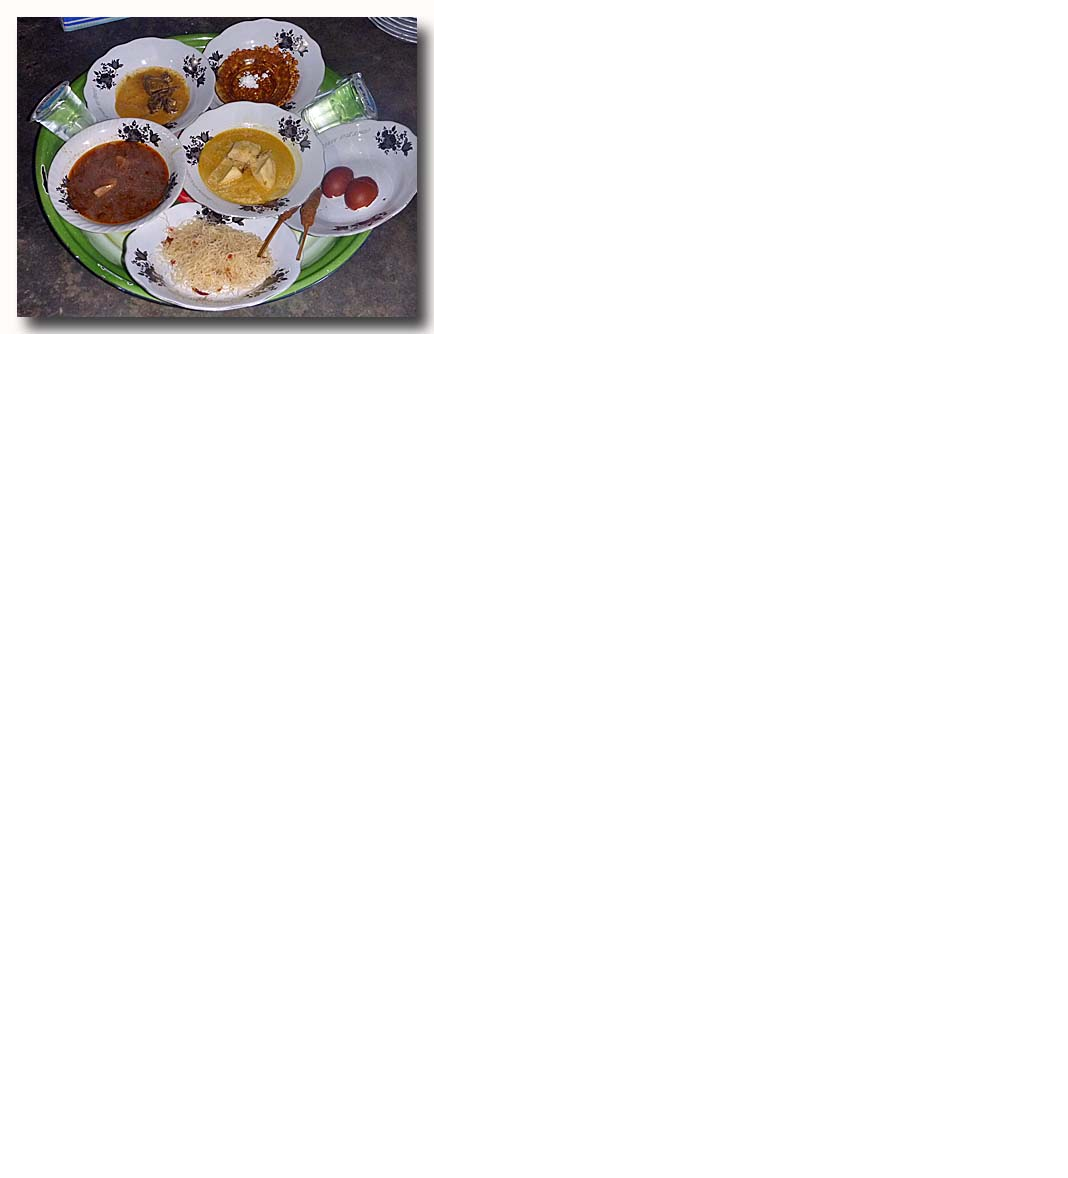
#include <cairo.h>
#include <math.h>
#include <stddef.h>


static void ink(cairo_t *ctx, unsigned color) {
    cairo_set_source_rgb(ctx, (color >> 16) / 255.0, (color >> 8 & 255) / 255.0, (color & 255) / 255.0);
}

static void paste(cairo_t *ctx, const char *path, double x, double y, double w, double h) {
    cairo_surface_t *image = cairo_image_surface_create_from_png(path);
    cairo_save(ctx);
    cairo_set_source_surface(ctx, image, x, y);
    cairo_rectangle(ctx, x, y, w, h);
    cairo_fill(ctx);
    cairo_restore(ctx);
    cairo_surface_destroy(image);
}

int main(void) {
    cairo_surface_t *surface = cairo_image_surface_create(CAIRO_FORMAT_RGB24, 1068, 1178);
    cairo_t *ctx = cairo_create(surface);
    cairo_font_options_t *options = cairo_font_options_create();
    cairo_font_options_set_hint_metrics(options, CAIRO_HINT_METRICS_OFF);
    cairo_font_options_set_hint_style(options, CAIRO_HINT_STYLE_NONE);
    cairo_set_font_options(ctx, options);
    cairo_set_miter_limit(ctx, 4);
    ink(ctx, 0xFFFFFF);
    cairo_paint(ctx);
    paste(ctx, "media/1.png", 0, 0, 434, 334);
    cairo_surface_write_to_png(surface, "image.png");
    cairo_font_options_destroy(options);
    cairo_destroy(ctx);
    cairo_surface_destroy(surface);
    return 0;
}
